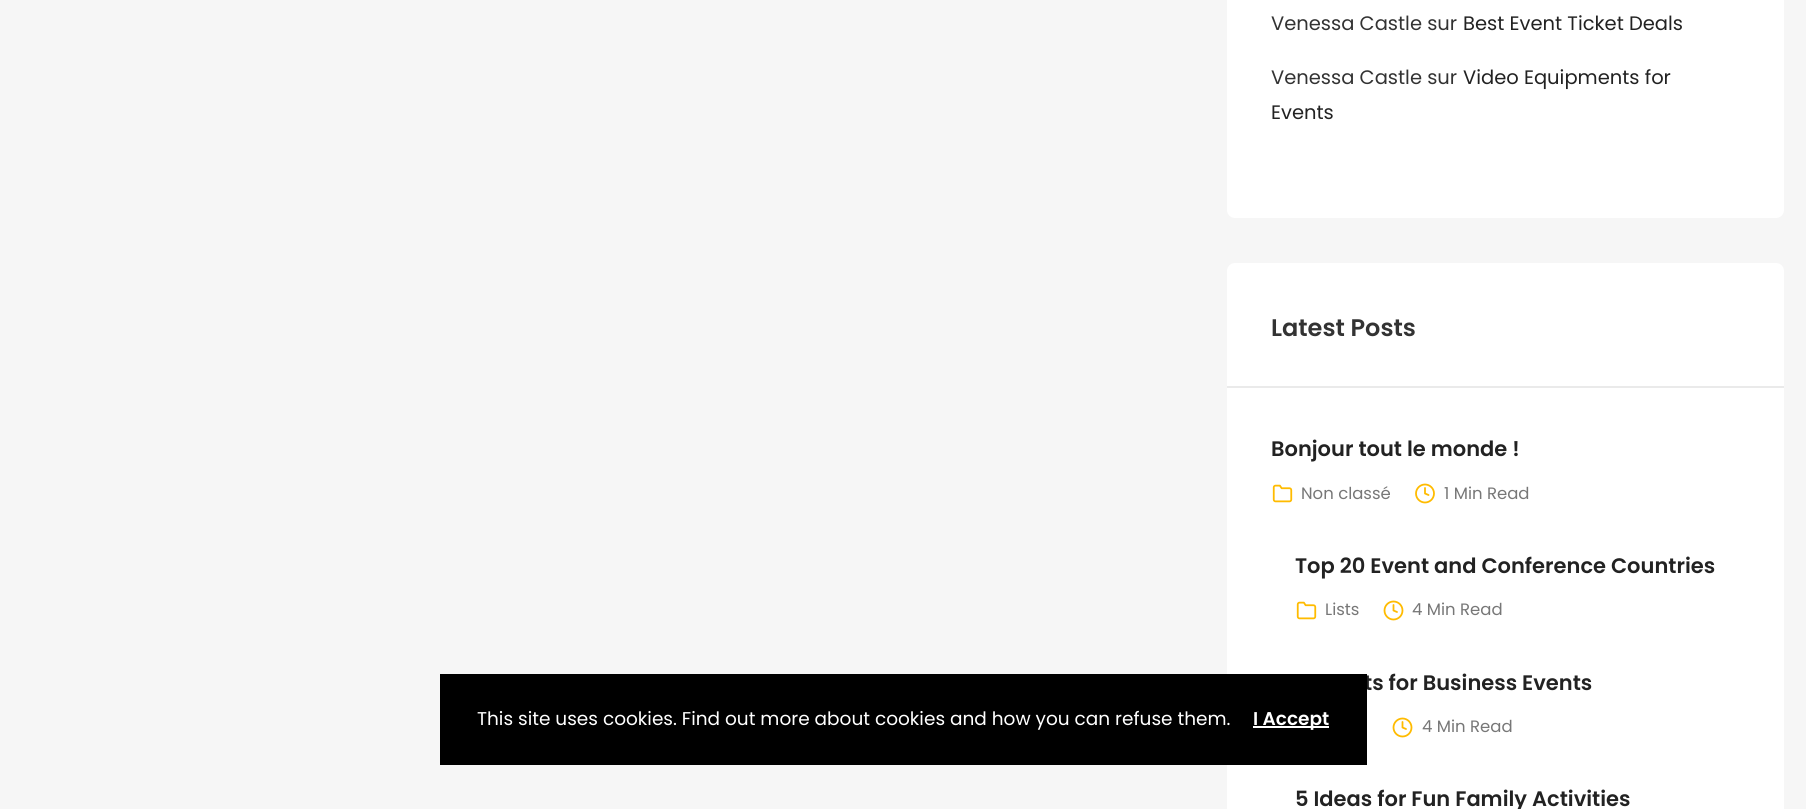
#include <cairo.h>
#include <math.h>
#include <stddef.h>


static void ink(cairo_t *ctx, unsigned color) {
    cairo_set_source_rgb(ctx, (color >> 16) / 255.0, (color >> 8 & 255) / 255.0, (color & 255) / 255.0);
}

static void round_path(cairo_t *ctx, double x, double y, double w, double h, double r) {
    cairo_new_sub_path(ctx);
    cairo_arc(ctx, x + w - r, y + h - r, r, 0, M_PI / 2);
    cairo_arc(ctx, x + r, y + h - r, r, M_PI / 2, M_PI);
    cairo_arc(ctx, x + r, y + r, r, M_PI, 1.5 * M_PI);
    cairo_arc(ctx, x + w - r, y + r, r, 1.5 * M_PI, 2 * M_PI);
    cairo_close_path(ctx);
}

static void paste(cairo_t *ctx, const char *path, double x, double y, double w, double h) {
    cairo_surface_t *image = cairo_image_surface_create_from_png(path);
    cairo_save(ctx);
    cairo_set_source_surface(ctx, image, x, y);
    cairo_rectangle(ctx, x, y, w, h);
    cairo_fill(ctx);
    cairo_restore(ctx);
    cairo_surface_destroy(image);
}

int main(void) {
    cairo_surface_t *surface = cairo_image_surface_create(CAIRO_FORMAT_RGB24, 1806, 809);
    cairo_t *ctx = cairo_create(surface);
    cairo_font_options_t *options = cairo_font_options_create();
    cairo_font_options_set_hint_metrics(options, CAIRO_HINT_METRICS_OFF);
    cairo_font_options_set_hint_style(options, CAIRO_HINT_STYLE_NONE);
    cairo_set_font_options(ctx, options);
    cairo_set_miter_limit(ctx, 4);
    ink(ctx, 0xF6F6F6);
    cairo_paint(ctx);
    ink(ctx, 0xFFFFFF);
    round_path(ctx, 1227, 263, 557, 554, 8);
    cairo_fill(ctx);
    cairo_select_font_face(ctx, "Poppins SemiBold", CAIRO_FONT_SLANT_NORMAL, CAIRO_FONT_WEIGHT_NORMAL);
    cairo_set_font_size(ctx, 21);
    ink(ctx, 0x222222);
    cairo_move_to(ctx, 1364, 690);
    cairo_show_text(ctx, "ts for Business Events");
    ink(ctx, 0x000000);
    cairo_rectangle(ctx, 440, 674, 927, 91);
    cairo_fill(ctx);
    cairo_select_font_face(ctx, "Poppins", CAIRO_FONT_SLANT_NORMAL, CAIRO_FONT_WEIGHT_NORMAL);
    cairo_set_font_size(ctx, 18.5);
    ink(ctx, 0xFFFFFF);
    cairo_move_to(ctx, 477, 725);
    cairo_show_text(ctx, "This site uses cookies. Find out more about cookies and how you can refuse them.");
    cairo_rectangle(ctx, 1253, 726, 76, 2);
    cairo_fill(ctx);
    cairo_select_font_face(ctx, "Poppins SemiBold", CAIRO_FONT_SLANT_NORMAL, CAIRO_FONT_WEIGHT_NORMAL);
    cairo_move_to(ctx, 1253, 725);
    cairo_show_text(ctx, "I Accept");
    round_path(ctx, 1227, -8, 557, 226, 8);
    cairo_fill(ctx);
    cairo_select_font_face(ctx, "Poppins", CAIRO_FONT_SLANT_NORMAL, CAIRO_FONT_WEIGHT_NORMAL);
    cairo_set_font_size(ctx, 19.5);
    ink(ctx, 0x333333);
    cairo_move_to(ctx, 1271, 30);
    cairo_show_text(ctx, "Venessa Castle sur");
    ink(ctx, 0x222222);
    cairo_move_to(ctx, 1463, 30);
    cairo_show_text(ctx, "Best Event Ticket Deals");
    ink(ctx, 0x333333);
    cairo_move_to(ctx, 1271, 84);
    cairo_show_text(ctx, "Venessa Castle sur");
    ink(ctx, 0x222222);
    cairo_move_to(ctx, 1463, 84);
    cairo_show_text(ctx, "Video Equipments for");
    cairo_move_to(ctx, 1271, 119);
    cairo_show_text(ctx, "Events");
    ink(ctx, 0xEAEAEA);
    cairo_rectangle(ctx, 1227, 386, 557, 2);
    cairo_fill(ctx);
    cairo_select_font_face(ctx, "Poppins SemiBold", CAIRO_FONT_SLANT_NORMAL, CAIRO_FONT_WEIGHT_NORMAL);
    cairo_set_font_size(ctx, 24);
    ink(ctx, 0x333333);
    cairo_move_to(ctx, 1271, 336);
    cairo_show_text(ctx, "Latest Posts");
    cairo_set_font_size(ctx, 21);
    ink(ctx, 0x222222);
    cairo_move_to(ctx, 1271, 456);
    cairo_show_text(ctx, "Bonjour tout le monde !");
    paste(ctx, "media/1.png", 1272, 484, 21, 19);
    cairo_select_font_face(ctx, "Poppins", CAIRO_FONT_SLANT_NORMAL, CAIRO_FONT_WEIGHT_NORMAL);
    cairo_set_font_size(ctx, 16.5);
    ink(ctx, 0x777777);
    cairo_move_to(ctx, 1301, 499);
    cairo_show_text(ctx, "Non classé");
    cairo_new_path(ctx);
    cairo_arc(ctx, 1425, 493.5, 9, 0, 2 * M_PI);
    ink(ctx, 0xFFBB00);
    cairo_set_line_width(ctx, 1.8);
    cairo_stroke(ctx);
    cairo_new_path(ctx);
    cairo_move_to(ctx, 1425, 488);
    cairo_line_to(ctx, 1425, 493.5);
    cairo_line_to(ctx, 1428.5, 495);
    cairo_set_line_cap(ctx, CAIRO_LINE_CAP_ROUND);
    cairo_set_line_join(ctx, CAIRO_LINE_JOIN_ROUND);
    cairo_stroke(ctx);
    ink(ctx, 0x777777);
    cairo_move_to(ctx, 1444, 499);
    cairo_show_text(ctx, "1 Min Read");
    cairo_select_font_face(ctx, "Poppins SemiBold", CAIRO_FONT_SLANT_NORMAL, CAIRO_FONT_WEIGHT_NORMAL);
    cairo_set_font_size(ctx, 21);
    ink(ctx, 0x222222);
    cairo_move_to(ctx, 1295, 573);
    cairo_show_text(ctx, "Top 20 Event and Conference Countries");
    paste(ctx, "media/1.png", 1296, 601, 21, 19);
    cairo_select_font_face(ctx, "Poppins", CAIRO_FONT_SLANT_NORMAL, CAIRO_FONT_WEIGHT_NORMAL);
    cairo_set_font_size(ctx, 16.5);
    ink(ctx, 0x777777);
    cairo_move_to(ctx, 1325, 615);
    cairo_show_text(ctx, "Lists");
    cairo_new_path(ctx);
    cairo_arc(ctx, 1393.5, 610.5, 9, 0, 2 * M_PI);
    ink(ctx, 0xFFBB00);
    cairo_set_line_cap(ctx, CAIRO_LINE_CAP_BUTT);
    cairo_set_line_join(ctx, CAIRO_LINE_JOIN_MITER);
    cairo_stroke(ctx);
    cairo_new_path(ctx);
    cairo_move_to(ctx, 1393.5, 605);
    cairo_line_to(ctx, 1393.5, 610.5);
    cairo_line_to(ctx, 1397, 612);
    cairo_set_line_cap(ctx, CAIRO_LINE_CAP_ROUND);
    cairo_set_line_join(ctx, CAIRO_LINE_JOIN_ROUND);
    cairo_stroke(ctx);
    ink(ctx, 0x777777);
    cairo_move_to(ctx, 1412, 615);
    cairo_show_text(ctx, "4 Min Read");
    cairo_new_path(ctx);
    cairo_arc(ctx, 1402.5, 727.5, 9, 0, 2 * M_PI);
    ink(ctx, 0xFFBB00);
    cairo_set_line_cap(ctx, CAIRO_LINE_CAP_BUTT);
    cairo_set_line_join(ctx, CAIRO_LINE_JOIN_MITER);
    cairo_stroke(ctx);
    cairo_new_path(ctx);
    cairo_move_to(ctx, 1402.5, 722);
    cairo_line_to(ctx, 1402.5, 727.5);
    cairo_line_to(ctx, 1406, 729);
    cairo_set_line_cap(ctx, CAIRO_LINE_CAP_ROUND);
    cairo_set_line_join(ctx, CAIRO_LINE_JOIN_ROUND);
    cairo_stroke(ctx);
    ink(ctx, 0x777777);
    cairo_move_to(ctx, 1422, 732);
    cairo_show_text(ctx, "4 Min Read");
    cairo_select_font_face(ctx, "Poppins SemiBold", CAIRO_FONT_SLANT_NORMAL, CAIRO_FONT_WEIGHT_NORMAL);
    cairo_set_font_size(ctx, 21);
    ink(ctx, 0x222222);
    cairo_move_to(ctx, 1295, 806);
    cairo_show_text(ctx, "5 Ideas for Fun Family Activities");
    cairo_surface_write_to_png(surface, "image.png");
    cairo_font_options_destroy(options);
    cairo_destroy(ctx);
    cairo_surface_destroy(surface);
    return 0;
}
